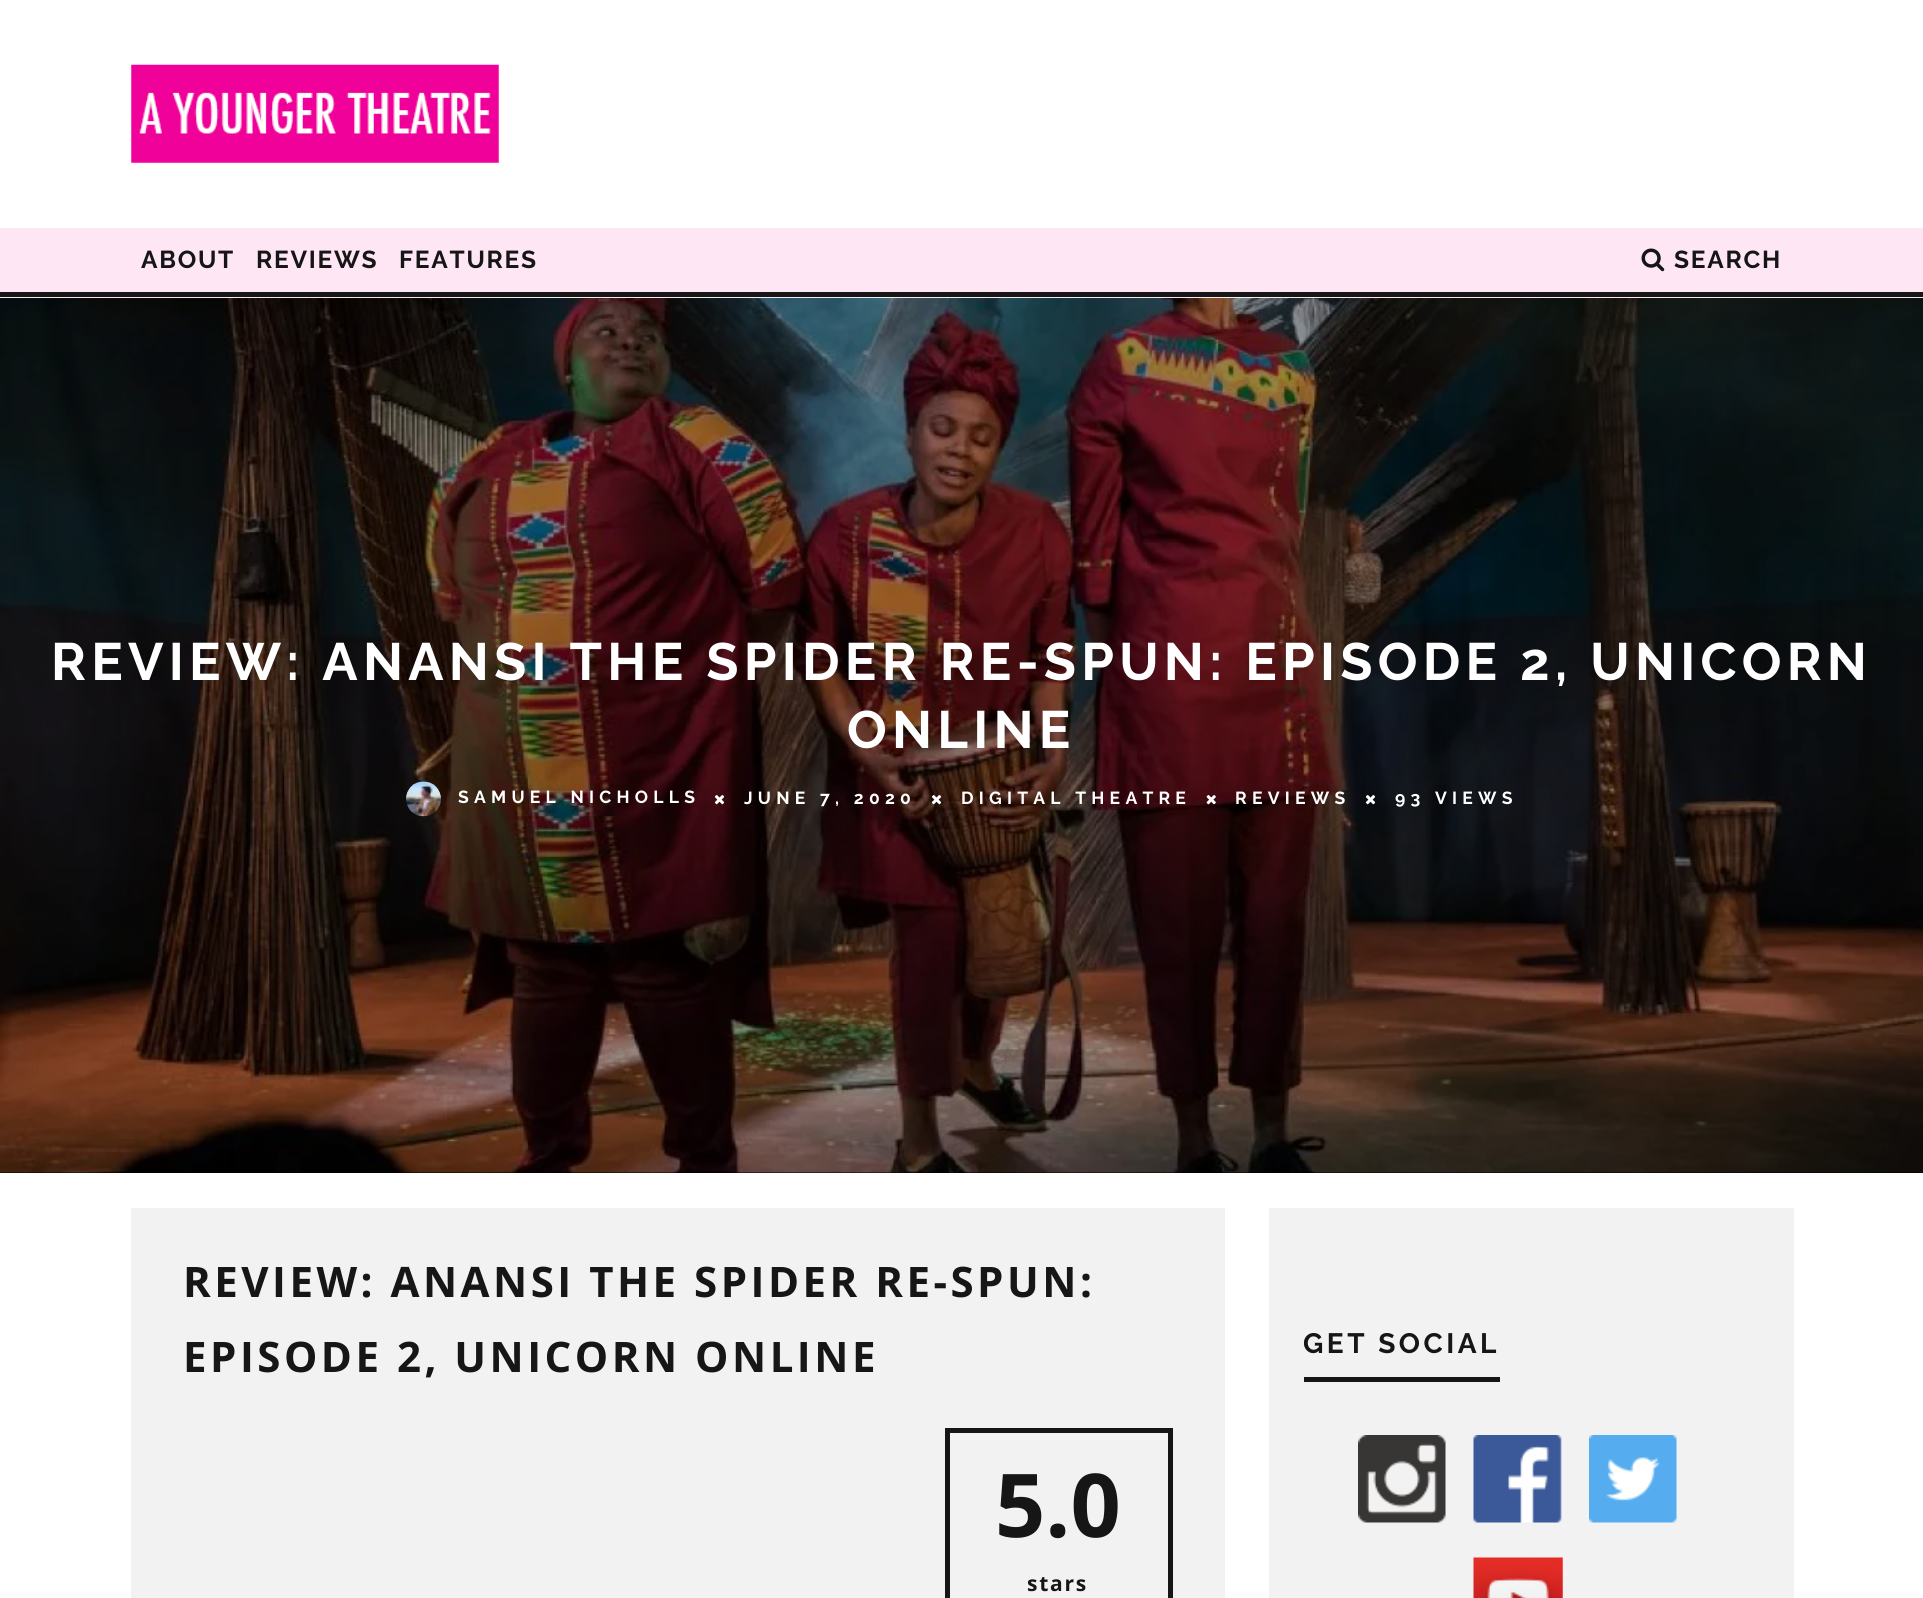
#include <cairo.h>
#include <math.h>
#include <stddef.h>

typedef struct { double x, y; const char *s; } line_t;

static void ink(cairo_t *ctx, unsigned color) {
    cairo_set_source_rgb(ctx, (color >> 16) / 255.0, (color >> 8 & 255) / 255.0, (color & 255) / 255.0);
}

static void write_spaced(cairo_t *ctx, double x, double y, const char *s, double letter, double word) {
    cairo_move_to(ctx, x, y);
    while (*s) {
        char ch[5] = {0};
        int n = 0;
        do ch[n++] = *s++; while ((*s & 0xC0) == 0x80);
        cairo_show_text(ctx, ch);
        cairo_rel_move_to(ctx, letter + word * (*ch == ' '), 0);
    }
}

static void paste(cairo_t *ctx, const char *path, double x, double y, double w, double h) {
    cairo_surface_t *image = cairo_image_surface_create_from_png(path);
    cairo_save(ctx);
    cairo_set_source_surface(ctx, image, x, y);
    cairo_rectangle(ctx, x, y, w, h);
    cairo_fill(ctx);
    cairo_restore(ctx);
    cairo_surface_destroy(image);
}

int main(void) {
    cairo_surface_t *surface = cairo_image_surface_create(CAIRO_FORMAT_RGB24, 1923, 1598);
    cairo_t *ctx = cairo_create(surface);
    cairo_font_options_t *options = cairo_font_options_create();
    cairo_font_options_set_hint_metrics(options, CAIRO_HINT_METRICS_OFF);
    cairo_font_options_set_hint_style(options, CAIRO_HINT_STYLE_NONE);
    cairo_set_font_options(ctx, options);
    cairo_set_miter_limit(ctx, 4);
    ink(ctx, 0xF0019A);
    cairo_paint(ctx);
    ink(ctx, 0xFFFFFF);
    cairo_rectangle(ctx, 0, 0, 1923, 228);
    cairo_fill(ctx);
    paste(ctx, "media/1.png", 131, 64, 368, 99);
    ink(ctx, 0x000000);
    cairo_rectangle(ctx, 0, 298, 1923, 875);
    cairo_fill(ctx);
    paste(ctx, "media/3.png", 0, 297, 1923, 876);
    cairo_set_source_rgba(ctx, 1, 1, 1, 0.9);
    cairo_rectangle(ctx, 0, 228, 1923, 70);
    cairo_fill(ctx);
    ink(ctx, 0x161616);
    cairo_rectangle(ctx, 0, 292, 1923, 5);
    cairo_fill(ctx);
    cairo_select_font_face(ctx, "Raleway", CAIRO_FONT_SLANT_NORMAL, CAIRO_FONT_WEIGHT_BOLD);
    cairo_set_font_size(ctx, 24.5);
    {
        static const line_t items[] = {
            {141, 268, "ABOUT"},
            {256, 268, "REVIEWS"},
            {399, 268, "FEATURES"},
        };
        for (size_t i = 0; i < sizeof items / sizeof *items; i++) {
            write_spaced(ctx, items[i].x, items[i].y, items[i].s, 1.75, 0);
        }
    }
    paste(ctx, "media/2.png", 1641, 248, 24, 24);
    write_spaced(ctx, 1674, 268, "SEARCH", 1.75, 0);
    ink(ctx, 0xFFFFFF);
    cairo_rectangle(ctx, 0, 1173, 1923, 425);
    cairo_fill(ctx);
    cairo_set_font_size(ctx, 52.5);
    write_spaced(ctx, 51, 680, "REVIEW: ANANSI THE SPIDER RE-SPUN: EPISODE 2, UNICORN", 5.25, 0);
    write_spaced(ctx, 847, 748, "ONLINE", 5.25, 0);
    paste(ctx, "media/4.png", 406, 781, 35, 36);
    cairo_set_font_size(ctx, 17.5);
    write_spaced(ctx, 458, 803, "SAMUEL NICHOLLS", 5.25, 0);
    paste(ctx, "media/5.png", 714, 795, 11, 10);
    write_spaced(ctx, 744, 804, "JUNE 7, 2020", 5.25, 0);
    paste(ctx, "media/6.png", 931, 795, 11, 10);
    write_spaced(ctx, 961, 804, "DIGITAL THEATRE", 5.25, 0);
    paste(ctx, "media/7.png", 1206, 795, 10, 10);
    write_spaced(ctx, 1235, 804, "REVIEWS", 5.25, 0);
    paste(ctx, "media/8.png", 1365, 795, 11, 10);
    write_spaced(ctx, 1395, 804, "93 VIEWS", 5.25, 0);
    ink(ctx, 0xF2F2F2);
    cairo_rectangle(ctx, 131, 1208, 1094, 390);
    cairo_fill(ctx);
    cairo_select_font_face(ctx, "Open Sans", CAIRO_FONT_SLANT_NORMAL, CAIRO_FONT_WEIGHT_BOLD);
    cairo_set_font_size(ctx, 42);
    ink(ctx, 0x161616);
    write_spaced(ctx, 183, 1297, "REVIEW: ANANSI THE SPIDER RE-SPUN:", 3.5, 0);
    write_spaced(ctx, 183, 1372, "EPISODE 2, UNICORN ONLINE", 3.5, 0);
    cairo_rectangle(ctx, 947.5, 1430.5, 223, 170);
    cairo_set_line_width(ctx, 5);
    cairo_stroke(ctx);
    cairo_set_font_size(ctx, 88);
    cairo_move_to(ctx, 995, 1537);
    cairo_show_text(ctx, "5.0");
    cairo_set_font_size(ctx, 21);
    write_spaced(ctx, 1027, 1591, "stars", 1.75, 0);
    ink(ctx, 0xF2F2F2);
    cairo_rectangle(ctx, 1269, 1208, 525, 390);
    cairo_fill(ctx);
    ink(ctx, 0x161616);
    cairo_rectangle(ctx, 1304, 1377, 196, 5);
    cairo_fill(ctx);
    cairo_save(ctx);
    cairo_rectangle(ctx, 1304, 1313, 455, 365);
    cairo_clip(ctx);
    cairo_select_font_face(ctx, "Raleway", CAIRO_FONT_SLANT_NORMAL, CAIRO_FONT_WEIGHT_BOLD);
    cairo_set_font_size(ctx, 28);
    write_spaced(ctx, 1303, 1353, "GET SOCIAL", 3.5, 0);
    cairo_restore(ctx);
    paste(ctx, "media/9.png", 1358, 1435, 88, 88);
    paste(ctx, "media/10.png", 1473, 1435, 89, 88);
    paste(ctx, "media/11.png", 1589, 1435, 88, 88);
    paste(ctx, "media/12.png", 1473, 1557, 90, 41);
    cairo_surface_write_to_png(surface, "image.png");
    cairo_font_options_destroy(options);
    cairo_destroy(ctx);
    cairo_surface_destroy(surface);
    return 0;
}
